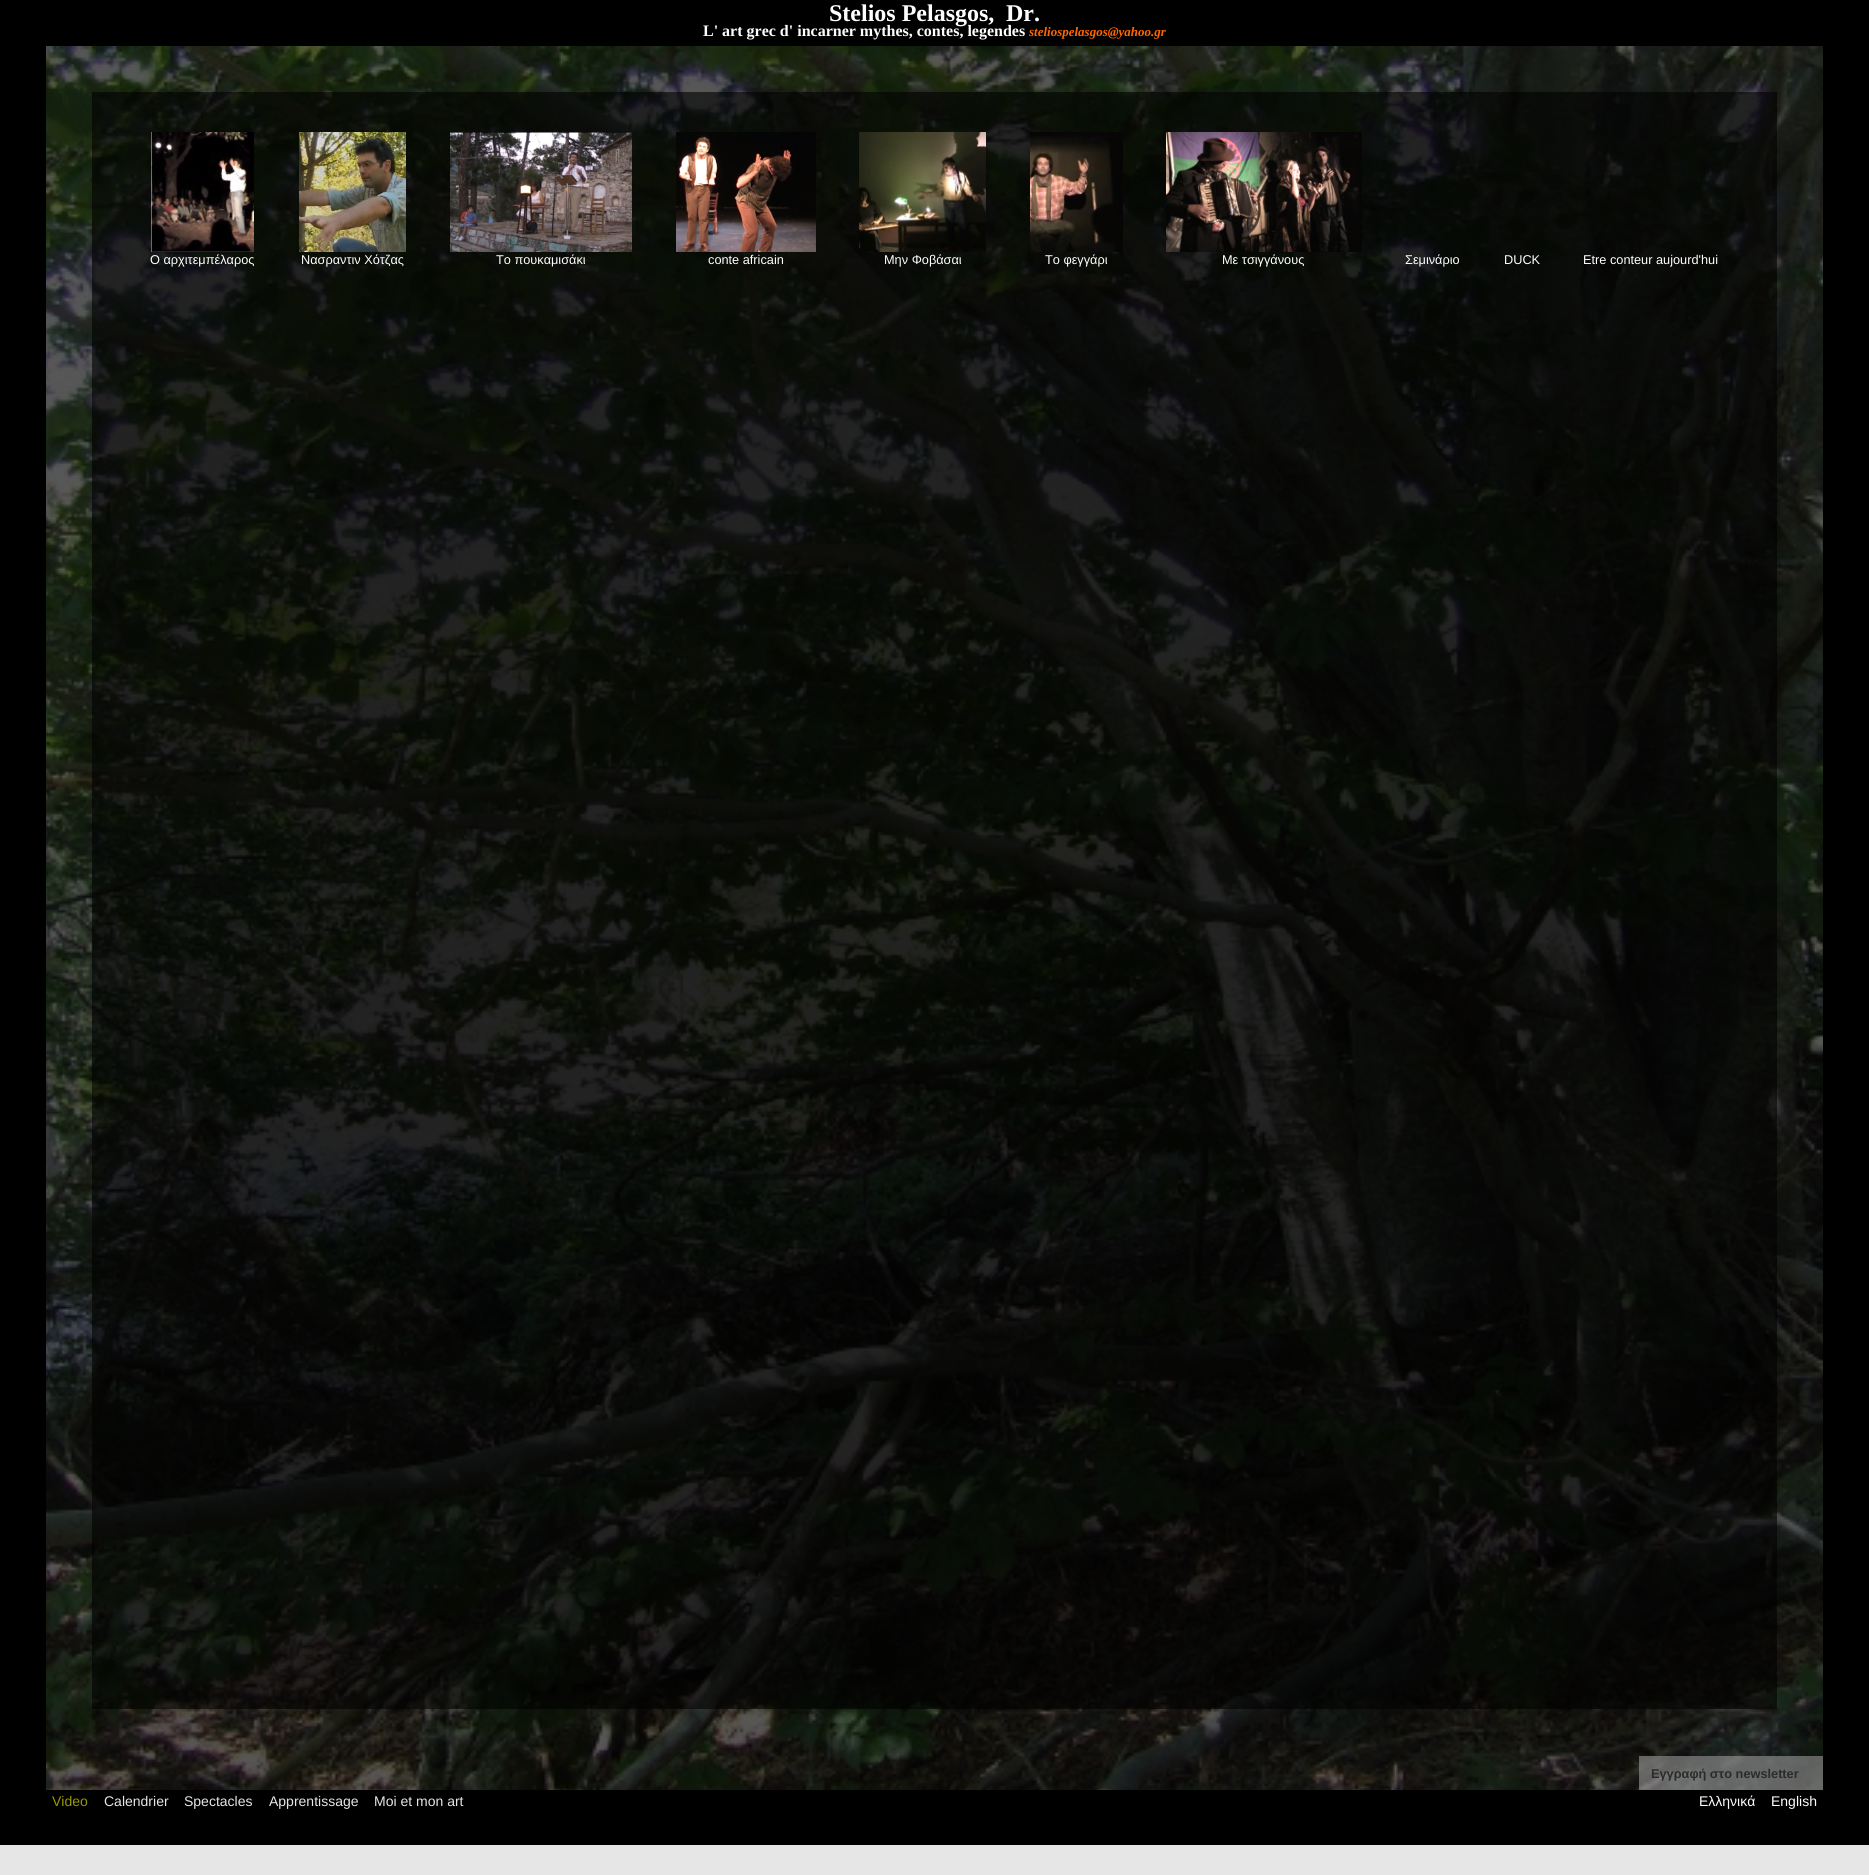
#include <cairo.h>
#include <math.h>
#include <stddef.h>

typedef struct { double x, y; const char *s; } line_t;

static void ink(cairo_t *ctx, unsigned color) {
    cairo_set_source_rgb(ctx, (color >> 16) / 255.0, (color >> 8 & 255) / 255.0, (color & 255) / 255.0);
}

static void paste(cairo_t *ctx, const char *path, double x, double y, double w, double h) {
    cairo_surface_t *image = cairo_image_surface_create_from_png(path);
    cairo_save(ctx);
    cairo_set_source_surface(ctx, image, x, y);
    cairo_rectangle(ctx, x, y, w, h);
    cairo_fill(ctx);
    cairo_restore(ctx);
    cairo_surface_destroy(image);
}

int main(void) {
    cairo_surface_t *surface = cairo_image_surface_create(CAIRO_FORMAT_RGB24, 1869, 1875);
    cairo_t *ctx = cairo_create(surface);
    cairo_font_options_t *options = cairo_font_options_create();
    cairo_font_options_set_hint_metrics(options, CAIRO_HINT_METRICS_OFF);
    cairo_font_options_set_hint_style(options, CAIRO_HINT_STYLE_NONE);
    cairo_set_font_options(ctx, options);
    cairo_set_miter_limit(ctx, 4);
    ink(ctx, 0x000000);
    cairo_paint(ctx);
    cairo_select_font_face(ctx, "Liberation Serif", CAIRO_FONT_SLANT_NORMAL, CAIRO_FONT_WEIGHT_BOLD);
    cairo_set_font_size(ctx, 24);
    ink(ctx, 0xFFFFFF);
    cairo_move_to(ctx, 829, 21);
    cairo_show_text(ctx, "Stelios Pelasgos,");
    cairo_move_to(ctx, 1006, 21);
    cairo_show_text(ctx, "Dr.");
    cairo_set_font_size(ctx, 16);
    cairo_move_to(ctx, 703, 36);
    cairo_show_text(ctx, "L' art grec d' incarner mythes, contes, legendes");
    cairo_select_font_face(ctx, "Liberation Serif", CAIRO_FONT_SLANT_ITALIC, CAIRO_FONT_WEIGHT_BOLD);
    cairo_set_font_size(ctx, 13);
    ink(ctx, 0xFF6600);
    cairo_move_to(ctx, 1029, 36);
    cairo_show_text(ctx, "steliospelasgos@yahoo.gr");
    paste(ctx, "media/1.png", 46, 46, 1777, 1744);
    cairo_set_source_rgba(ctx, 0, 0, 0, 0.6);
    cairo_rectangle(ctx, 92, 92, 1685, 1617);
    cairo_fill(ctx);
    paste(ctx, "media/2.png", 151, 132, 103, 120);
    cairo_select_font_face(ctx, "Liberation Sans", CAIRO_FONT_SLANT_NORMAL, CAIRO_FONT_WEIGHT_NORMAL);
    cairo_set_font_size(ctx, 12.75);
    ink(ctx, 0xFFFFFF);
    cairo_move_to(ctx, 150, 264);
    cairo_show_text(ctx, "Ο αρχιτεμπέλαρος");
    paste(ctx, "media/3.png", 299, 132, 107, 120);
    cairo_move_to(ctx, 301, 264);
    cairo_show_text(ctx, "Νασραντιν Χότζας");
    paste(ctx, "media/4.png", 450, 132, 182, 120);
    cairo_move_to(ctx, 496, 264);
    cairo_show_text(ctx, "Το πουκαμισάκι");
    paste(ctx, "media/5.png", 676, 132, 140, 120);
    cairo_move_to(ctx, 708, 264);
    cairo_show_text(ctx, "conte africain");
    paste(ctx, "media/6.png", 859, 132, 127, 120);
    cairo_move_to(ctx, 884, 264);
    cairo_show_text(ctx, "Μην Φοβάσαι");
    paste(ctx, "media/7.png", 1030, 132, 93, 120);
    cairo_move_to(ctx, 1045, 264);
    cairo_show_text(ctx, "Το φεγγάρι");
    paste(ctx, "media/8.png", 1166, 132, 196, 120);
    {
        static const line_t items[] = {
            {1222, 264, "Με τσιγγάνους"},
            {1405, 264, "Σεμινάριο"},
            {1504, 264, "DUCK"},
            {1583, 264, "Etre conteur aujourd'hui"},
        };
        for (size_t i = 0; i < sizeof items / sizeof *items; i++) {
            cairo_move_to(ctx, items[i].x, items[i].y);
            cairo_show_text(ctx, items[i].s);
        }
    }
    cairo_set_source_rgba(ctx, 0.6, 0.6, 0.6, 0.6);
    cairo_rectangle(ctx, 1639, 1756, 184, 34);
    cairo_fill(ctx);
    cairo_select_font_face(ctx, "Liberation Sans", CAIRO_FONT_SLANT_NORMAL, CAIRO_FONT_WEIGHT_BOLD);
    ink(ctx, 0x2A2B2A);
    cairo_move_to(ctx, 1651, 1778);
    cairo_show_text(ctx, "Εγγραφή στο newsletter");
    cairo_select_font_face(ctx, "Liberation Sans", CAIRO_FONT_SLANT_NORMAL, CAIRO_FONT_WEIGHT_NORMAL);
    cairo_set_font_size(ctx, 14);
    ink(ctx, 0x999900);
    cairo_move_to(ctx, 52, 1806);
    cairo_show_text(ctx, "Video");
    ink(ctx, 0xE6E6E6);
    {
        static const line_t items[] = {
            {104, 1806, "Calendrier"},
            {184, 1806, "Spectacles"},
            {269, 1806, "Apprentissage"},
            {374, 1806, "Moi et mon art"},
        };
        for (size_t i = 0; i < sizeof items / sizeof *items; i++) {
            cairo_move_to(ctx, items[i].x, items[i].y);
            cairo_show_text(ctx, items[i].s);
        }
    }
    ink(ctx, 0xFFFFFF);
    cairo_move_to(ctx, 1699, 1806);
    cairo_show_text(ctx, "Ελληνικά");
    cairo_move_to(ctx, 1771, 1806);
    cairo_show_text(ctx, "English");
    ink(ctx, 0xE6E6E6);
    cairo_rectangle(ctx, 0, 1845, 1869, 30);
    cairo_fill(ctx);
    cairo_surface_write_to_png(surface, "image.png");
    cairo_font_options_destroy(options);
    cairo_destroy(ctx);
    cairo_surface_destroy(surface);
    return 0;
}
